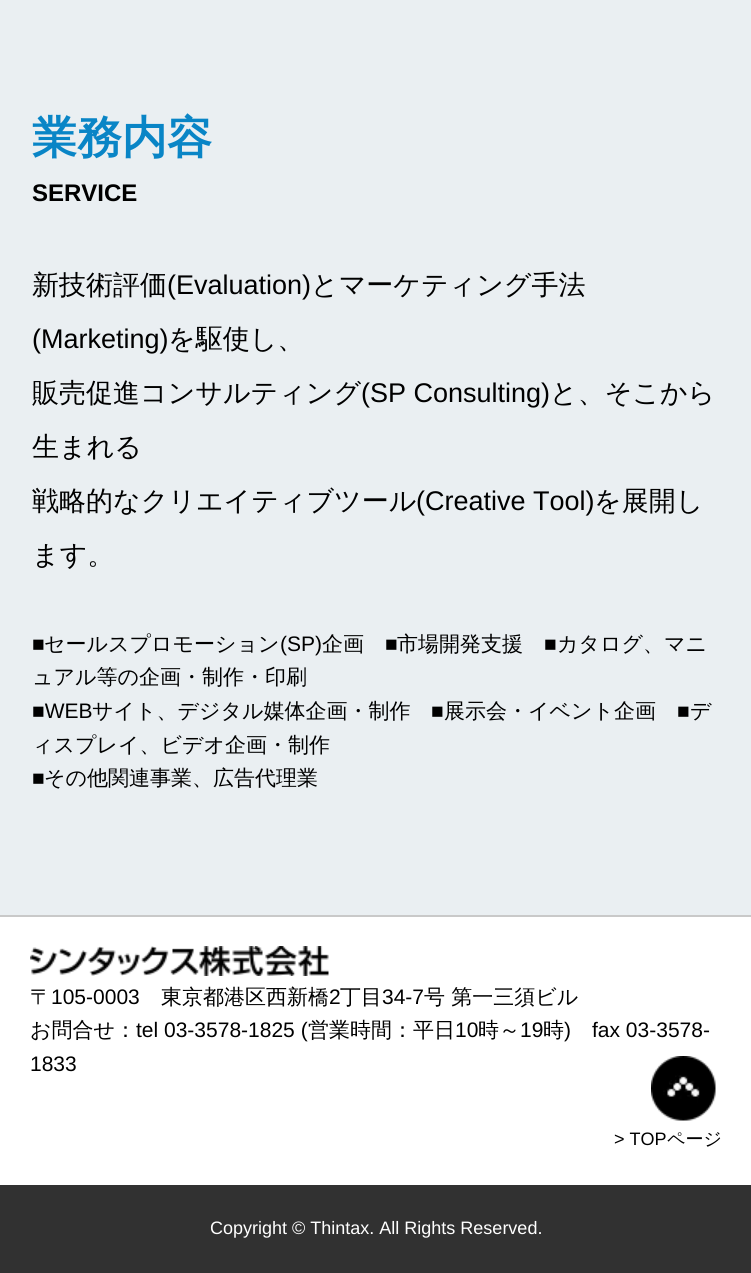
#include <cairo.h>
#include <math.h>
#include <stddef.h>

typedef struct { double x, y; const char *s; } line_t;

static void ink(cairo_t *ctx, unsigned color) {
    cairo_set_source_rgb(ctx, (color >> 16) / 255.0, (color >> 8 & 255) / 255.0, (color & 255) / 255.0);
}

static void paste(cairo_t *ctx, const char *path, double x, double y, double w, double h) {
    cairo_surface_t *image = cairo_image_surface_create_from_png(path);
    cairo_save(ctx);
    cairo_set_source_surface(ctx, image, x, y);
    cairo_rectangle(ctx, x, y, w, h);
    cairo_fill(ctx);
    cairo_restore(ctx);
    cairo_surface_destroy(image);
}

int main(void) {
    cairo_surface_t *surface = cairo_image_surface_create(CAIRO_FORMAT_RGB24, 751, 1273);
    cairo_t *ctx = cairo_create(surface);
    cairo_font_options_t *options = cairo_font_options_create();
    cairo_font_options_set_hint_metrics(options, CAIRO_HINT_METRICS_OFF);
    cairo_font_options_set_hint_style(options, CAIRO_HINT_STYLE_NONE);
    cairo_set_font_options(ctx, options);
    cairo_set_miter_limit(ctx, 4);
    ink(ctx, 0xFFFFFF);
    cairo_paint(ctx);
    ink(ctx, 0xEAEFF2);
    cairo_rectangle(ctx, 0, 0, 751, 915);
    cairo_fill(ctx);
    cairo_select_font_face(ctx, "WenQuanYi Zen Hei", CAIRO_FONT_SLANT_NORMAL, CAIRO_FONT_WEIGHT_BOLD);
    cairo_set_font_size(ctx, 45);
    ink(ctx, 0x0985C6);
    cairo_move_to(ctx, 32, 153);
    cairo_show_text(ctx, "業務内容");
    cairo_select_font_face(ctx, "Liberation Sans", CAIRO_FONT_SLANT_NORMAL, CAIRO_FONT_WEIGHT_BOLD);
    cairo_set_font_size(ctx, 24);
    ink(ctx, 0x000000);
    cairo_move_to(ctx, 32, 201);
    cairo_show_text(ctx, "SERVICE");
    cairo_select_font_face(ctx, "WenQuanYi Zen Hei Medium", CAIRO_FONT_SLANT_NORMAL, CAIRO_FONT_WEIGHT_NORMAL);
    cairo_set_font_size(ctx, 27);
    cairo_move_to(ctx, 32, 294);
    cairo_show_text(ctx, "新技術評価");
    cairo_select_font_face(ctx, "Liberation Sans", CAIRO_FONT_SLANT_NORMAL, CAIRO_FONT_WEIGHT_NORMAL);
    cairo_move_to(ctx, 167, 294);
    cairo_show_text(ctx, "(Evaluation)");
    cairo_select_font_face(ctx, "WenQuanYi Zen Hei Medium", CAIRO_FONT_SLANT_NORMAL, CAIRO_FONT_WEIGHT_NORMAL);
    cairo_move_to(ctx, 311, 294);
    cairo_show_text(ctx, "とマーケティング手法");
    cairo_select_font_face(ctx, "Liberation Sans", CAIRO_FONT_SLANT_NORMAL, CAIRO_FONT_WEIGHT_NORMAL);
    cairo_move_to(ctx, 32, 348);
    cairo_show_text(ctx, "(Marketing)");
    cairo_select_font_face(ctx, "WenQuanYi Zen Hei Medium", CAIRO_FONT_SLANT_NORMAL, CAIRO_FONT_WEIGHT_NORMAL);
    cairo_move_to(ctx, 168, 348);
    cairo_show_text(ctx, "を駆使し、");
    cairo_move_to(ctx, 32, 402);
    cairo_show_text(ctx, "販売促進コンサルティング");
    cairo_select_font_face(ctx, "Liberation Sans", CAIRO_FONT_SLANT_NORMAL, CAIRO_FONT_WEIGHT_NORMAL);
    cairo_move_to(ctx, 361, 402);
    cairo_show_text(ctx, "(SP Consulting)");
    cairo_select_font_face(ctx, "WenQuanYi Zen Hei Medium", CAIRO_FONT_SLANT_NORMAL, CAIRO_FONT_WEIGHT_NORMAL);
    {
        static const line_t items[] = {
            {550, 402, "と、そこから"},
            {32, 456, "生まれる"},
            {32, 510, "戦略的なクリエイティブツール"},
        };
        for (size_t i = 0; i < sizeof items / sizeof *items; i++) {
            cairo_move_to(ctx, items[i].x, items[i].y);
            cairo_show_text(ctx, items[i].s);
        }
    }
    cairo_select_font_face(ctx, "Liberation Sans", CAIRO_FONT_SLANT_NORMAL, CAIRO_FONT_WEIGHT_NORMAL);
    cairo_move_to(ctx, 416, 510);
    cairo_show_text(ctx, "(Creative Tool)");
    cairo_select_font_face(ctx, "WenQuanYi Zen Hei Medium", CAIRO_FONT_SLANT_NORMAL, CAIRO_FONT_WEIGHT_NORMAL);
    cairo_move_to(ctx, 594, 510);
    cairo_show_text(ctx, "を展開し");
    cairo_move_to(ctx, 32, 564);
    cairo_show_text(ctx, "ます。");
    cairo_select_font_face(ctx, "Liberation Sans", CAIRO_FONT_SLANT_NORMAL, CAIRO_FONT_WEIGHT_NORMAL);
    cairo_set_font_size(ctx, 21);
    cairo_move_to(ctx, 32, 651);
    cairo_show_text(ctx, "■");
    cairo_select_font_face(ctx, "WenQuanYi Zen Hei Medium", CAIRO_FONT_SLANT_NORMAL, CAIRO_FONT_WEIGHT_NORMAL);
    cairo_move_to(ctx, 44, 651);
    cairo_show_text(ctx, "セールスプロモーション");
    cairo_select_font_face(ctx, "Liberation Sans", CAIRO_FONT_SLANT_NORMAL, CAIRO_FONT_WEIGHT_NORMAL);
    cairo_move_to(ctx, 280, 651);
    cairo_show_text(ctx, "(SP)");
    cairo_select_font_face(ctx, "WenQuanYi Zen Hei Medium", CAIRO_FONT_SLANT_NORMAL, CAIRO_FONT_WEIGHT_NORMAL);
    cairo_move_to(ctx, 322, 651);
    cairo_show_text(ctx, "企画");
    cairo_select_font_face(ctx, "Liberation Sans", CAIRO_FONT_SLANT_NORMAL, CAIRO_FONT_WEIGHT_NORMAL);
    cairo_move_to(ctx, 385, 651);
    cairo_show_text(ctx, "■");
    cairo_select_font_face(ctx, "WenQuanYi Zen Hei Medium", CAIRO_FONT_SLANT_NORMAL, CAIRO_FONT_WEIGHT_NORMAL);
    cairo_move_to(ctx, 397, 651);
    cairo_show_text(ctx, "市場開発支援");
    cairo_select_font_face(ctx, "Liberation Sans", CAIRO_FONT_SLANT_NORMAL, CAIRO_FONT_WEIGHT_NORMAL);
    cairo_move_to(ctx, 544, 651);
    cairo_show_text(ctx, "■");
    cairo_select_font_face(ctx, "WenQuanYi Zen Hei Medium", CAIRO_FONT_SLANT_NORMAL, CAIRO_FONT_WEIGHT_NORMAL);
    cairo_move_to(ctx, 557, 651);
    cairo_show_text(ctx, "カタログ、マニ");
    cairo_move_to(ctx, 32, 684);
    cairo_show_text(ctx, "ュアル等の企画・制作・印刷");
    cairo_select_font_face(ctx, "Liberation Sans", CAIRO_FONT_SLANT_NORMAL, CAIRO_FONT_WEIGHT_NORMAL);
    cairo_move_to(ctx, 32, 718);
    cairo_show_text(ctx, "■WEB");
    cairo_select_font_face(ctx, "WenQuanYi Zen Hei Medium", CAIRO_FONT_SLANT_NORMAL, CAIRO_FONT_WEIGHT_NORMAL);
    cairo_move_to(ctx, 92, 718);
    cairo_show_text(ctx, "サイト、デジタル媒体企画・制作");
    cairo_select_font_face(ctx, "Liberation Sans", CAIRO_FONT_SLANT_NORMAL, CAIRO_FONT_WEIGHT_NORMAL);
    cairo_move_to(ctx, 431, 718);
    cairo_show_text(ctx, "■");
    cairo_select_font_face(ctx, "WenQuanYi Zen Hei Medium", CAIRO_FONT_SLANT_NORMAL, CAIRO_FONT_WEIGHT_NORMAL);
    cairo_move_to(ctx, 444, 718);
    cairo_show_text(ctx, "展示会・イベント企画");
    cairo_select_font_face(ctx, "Liberation Sans", CAIRO_FONT_SLANT_NORMAL, CAIRO_FONT_WEIGHT_NORMAL);
    cairo_move_to(ctx, 677, 718);
    cairo_show_text(ctx, "■");
    cairo_select_font_face(ctx, "WenQuanYi Zen Hei Medium", CAIRO_FONT_SLANT_NORMAL, CAIRO_FONT_WEIGHT_NORMAL);
    cairo_move_to(ctx, 690, 718);
    cairo_show_text(ctx, "デ");
    cairo_move_to(ctx, 32, 752);
    cairo_show_text(ctx, "ィスプレイ、ビデオ企画・制作");
    cairo_select_font_face(ctx, "Liberation Sans", CAIRO_FONT_SLANT_NORMAL, CAIRO_FONT_WEIGHT_NORMAL);
    cairo_move_to(ctx, 32, 785);
    cairo_show_text(ctx, "■");
    cairo_select_font_face(ctx, "WenQuanYi Zen Hei Medium", CAIRO_FONT_SLANT_NORMAL, CAIRO_FONT_WEIGHT_NORMAL);
    cairo_move_to(ctx, 44, 785);
    cairo_show_text(ctx, "その他関連事業、広告代理業");
    ink(ctx, 0xC9C9C9);
    cairo_rectangle(ctx, 0, 915, 751, 2);
    cairo_fill(ctx);
    paste(ctx, "media/1.png", 30, 946, 299, 30);
    ink(ctx, 0x000000);
    cairo_move_to(ctx, 30, 1004);
    cairo_show_text(ctx, "〒");
    cairo_select_font_face(ctx, "Liberation Sans", CAIRO_FONT_SLANT_NORMAL, CAIRO_FONT_WEIGHT_NORMAL);
    cairo_move_to(ctx, 51, 1004);
    cairo_show_text(ctx, "105-0003");
    cairo_select_font_face(ctx, "WenQuanYi Zen Hei Medium", CAIRO_FONT_SLANT_NORMAL, CAIRO_FONT_WEIGHT_NORMAL);
    cairo_move_to(ctx, 161, 1004);
    cairo_show_text(ctx, "東京都港区西新橋");
    cairo_select_font_face(ctx, "Liberation Sans", CAIRO_FONT_SLANT_NORMAL, CAIRO_FONT_WEIGHT_NORMAL);
    cairo_move_to(ctx, 329, 1004);
    cairo_show_text(ctx, "2");
    cairo_select_font_face(ctx, "WenQuanYi Zen Hei Medium", CAIRO_FONT_SLANT_NORMAL, CAIRO_FONT_WEIGHT_NORMAL);
    cairo_move_to(ctx, 340, 1004);
    cairo_show_text(ctx, "丁目");
    cairo_select_font_face(ctx, "Liberation Sans", CAIRO_FONT_SLANT_NORMAL, CAIRO_FONT_WEIGHT_NORMAL);
    cairo_move_to(ctx, 382, 1004);
    cairo_show_text(ctx, "34-7");
    cairo_select_font_face(ctx, "WenQuanYi Zen Hei Medium", CAIRO_FONT_SLANT_NORMAL, CAIRO_FONT_WEIGHT_NORMAL);
    cairo_move_to(ctx, 424, 1004);
    cairo_show_text(ctx, "号 第一三須ビル");
    cairo_move_to(ctx, 30, 1037);
    cairo_show_text(ctx, "お問合せ：");
    cairo_select_font_face(ctx, "Liberation Sans", CAIRO_FONT_SLANT_NORMAL, CAIRO_FONT_WEIGHT_NORMAL);
    cairo_move_to(ctx, 136, 1037);
    cairo_show_text(ctx, "tel 03-3578-1825 (");
    cairo_select_font_face(ctx, "WenQuanYi Zen Hei Medium", CAIRO_FONT_SLANT_NORMAL, CAIRO_FONT_WEIGHT_NORMAL);
    cairo_move_to(ctx, 308, 1037);
    cairo_show_text(ctx, "営業時間：平日");
    cairo_select_font_face(ctx, "Liberation Sans", CAIRO_FONT_SLANT_NORMAL, CAIRO_FONT_WEIGHT_NORMAL);
    cairo_move_to(ctx, 455, 1037);
    cairo_show_text(ctx, "10");
    cairo_select_font_face(ctx, "WenQuanYi Zen Hei Medium", CAIRO_FONT_SLANT_NORMAL, CAIRO_FONT_WEIGHT_NORMAL);
    cairo_move_to(ctx, 478, 1037);
    cairo_show_text(ctx, "時～");
    cairo_select_font_face(ctx, "Liberation Sans", CAIRO_FONT_SLANT_NORMAL, CAIRO_FONT_WEIGHT_NORMAL);
    cairo_move_to(ctx, 520, 1037);
    cairo_show_text(ctx, "19");
    cairo_select_font_face(ctx, "WenQuanYi Zen Hei Medium", CAIRO_FONT_SLANT_NORMAL, CAIRO_FONT_WEIGHT_NORMAL);
    cairo_move_to(ctx, 543, 1037);
    cairo_show_text(ctx, "時");
    cairo_select_font_face(ctx, "Liberation Sans", CAIRO_FONT_SLANT_NORMAL, CAIRO_FONT_WEIGHT_NORMAL);
    {
        static const line_t items[] = {
            {564, 1037, ")"},
            {592, 1037, "fax 03-3578-"},
            {30, 1071, "1833"},
        };
        for (size_t i = 0; i < sizeof items / sizeof *items; i++) {
            cairo_move_to(ctx, items[i].x, items[i].y);
            cairo_show_text(ctx, items[i].s);
        }
    }
    cairo_set_font_size(ctx, 18);
    cairo_move_to(ctx, 614, 1145);
    cairo_show_text(ctx, "> TOP");
    cairo_select_font_face(ctx, "WenQuanYi Zen Hei Medium", CAIRO_FONT_SLANT_NORMAL, CAIRO_FONT_WEIGHT_NORMAL);
    cairo_move_to(ctx, 667, 1145);
    cairo_show_text(ctx, "ページ");
    paste(ctx, "media/2.png", 651, 1056, 65, 65);
    ink(ctx, 0x313131);
    cairo_rectangle(ctx, 0, 1185, 751, 88);
    cairo_fill(ctx);
    cairo_select_font_face(ctx, "Liberation Sans", CAIRO_FONT_SLANT_NORMAL, CAIRO_FONT_WEIGHT_NORMAL);
    ink(ctx, 0xFFFFFF);
    cairo_move_to(ctx, 210, 1234);
    cairo_show_text(ctx, "Copyright © Thintax. All Rights Reserved.");
    cairo_surface_write_to_png(surface, "image.png");
    cairo_font_options_destroy(options);
    cairo_destroy(ctx);
    cairo_surface_destroy(surface);
    return 0;
}
